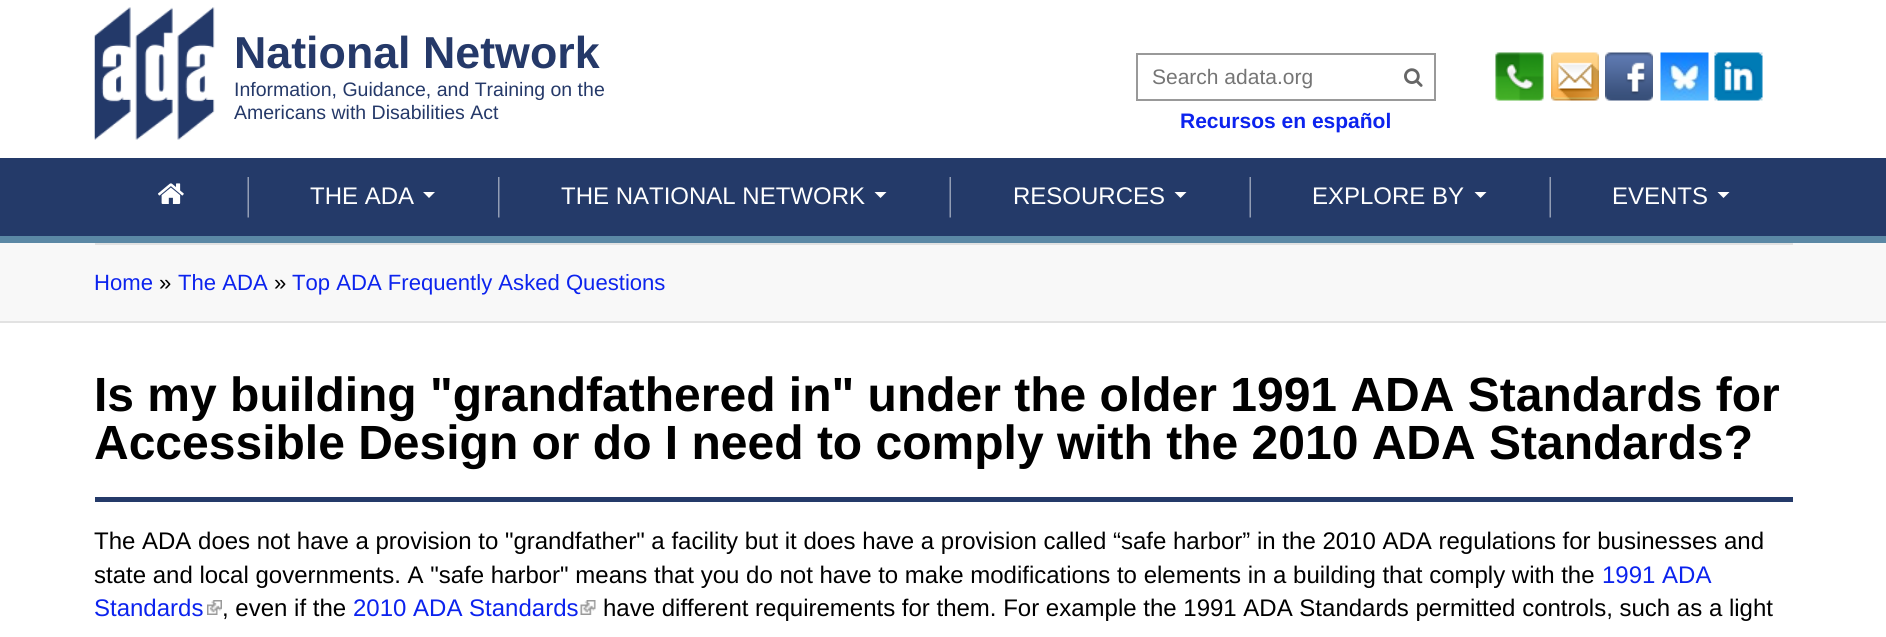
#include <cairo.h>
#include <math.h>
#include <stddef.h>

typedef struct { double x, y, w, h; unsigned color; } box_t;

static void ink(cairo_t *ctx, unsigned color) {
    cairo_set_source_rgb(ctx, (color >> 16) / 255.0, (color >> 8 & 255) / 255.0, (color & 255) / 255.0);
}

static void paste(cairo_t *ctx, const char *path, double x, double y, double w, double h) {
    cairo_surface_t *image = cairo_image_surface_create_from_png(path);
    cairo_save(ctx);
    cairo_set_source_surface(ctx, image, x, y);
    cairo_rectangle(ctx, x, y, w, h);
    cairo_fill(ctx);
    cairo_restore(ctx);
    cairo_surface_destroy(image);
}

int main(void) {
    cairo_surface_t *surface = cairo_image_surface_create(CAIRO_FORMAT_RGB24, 1886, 637);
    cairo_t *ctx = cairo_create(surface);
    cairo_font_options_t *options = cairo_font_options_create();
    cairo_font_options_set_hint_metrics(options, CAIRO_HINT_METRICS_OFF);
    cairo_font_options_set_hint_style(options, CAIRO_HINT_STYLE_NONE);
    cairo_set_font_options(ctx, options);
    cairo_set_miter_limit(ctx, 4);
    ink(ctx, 0xFFFFFF);
    cairo_paint(ctx);
    paste(ctx, "media/1.png", 94, 7, 121, 133);
    cairo_select_font_face(ctx, "Liberation Sans", CAIRO_FONT_SLANT_NORMAL, CAIRO_FONT_WEIGHT_BOLD);
    cairo_set_font_size(ctx, 44.75);
    ink(ctx, 0x253969);
    cairo_move_to(ctx, 234, 68);
    cairo_show_text(ctx, "National Network");
    cairo_select_font_face(ctx, "Liberation Sans", CAIRO_FONT_SLANT_NORMAL, CAIRO_FONT_WEIGHT_NORMAL);
    cairo_set_font_size(ctx, 19.5);
    cairo_move_to(ctx, 234, 96);
    cairo_show_text(ctx, "Information, Guidance, and Training on the");
    cairo_move_to(ctx, 234, 119);
    cairo_show_text(ctx, "Americans with Disabilities Act");
    cairo_rectangle(ctx, 1137, 54, 298, 46);
    ink(ctx, 0x999999);
    cairo_stroke(ctx);
    cairo_set_font_size(ctx, 21);
    ink(ctx, 0x757575);
    cairo_move_to(ctx, 1152, 84);
    cairo_show_text(ctx, "Search adata.org");
    paste(ctx, "media/2.png", 1404, 68, 19, 19);
    cairo_select_font_face(ctx, "Liberation Sans", CAIRO_FONT_SLANT_NORMAL, CAIRO_FONT_WEIGHT_BOLD);
    ink(ctx, 0x0C23EE);
    cairo_move_to(ctx, 1180, 128);
    cairo_show_text(ctx, "Recursos en español");
    paste(ctx, "media/3.png", 1495, 52, 49, 49);
    paste(ctx, "media/4.png", 1551, 52, 48, 49);
    paste(ctx, "media/5.png", 1605, 52, 48, 49);
    paste(ctx, "media/6.png", 1660, 52, 49, 49);
    paste(ctx, "media/7.png", 1714, 52, 49, 49);
    ink(ctx, 0x5B88A5);
    cairo_rectangle(ctx, 0, 236, 1886, 7);
    cairo_fill(ctx);
    ink(ctx, 0x243A69);
    cairo_rectangle(ctx, 0, 158, 1886, 78);
    cairo_fill(ctx);
    paste(ctx, "media/8.png", 158, 183, 26, 21);
    paste(ctx, "media/9.png", 247, 177, 2, 41);
    cairo_select_font_face(ctx, "Liberation Sans", CAIRO_FONT_SLANT_NORMAL, CAIRO_FONT_WEIGHT_NORMAL);
    cairo_set_font_size(ctx, 24);
    ink(ctx, 0xFFFFFF);
    cairo_move_to(ctx, 310, 204);
    cairo_show_text(ctx, "THE ADA");
    cairo_new_path(ctx);
    cairo_move_to(ctx, 423, 192);
    cairo_line_to(ctx, 435, 192);
    cairo_line_to(ctx, 429, 198);
    cairo_close_path(ctx);
    cairo_fill(ctx);
    paste(ctx, "media/10.png", 498, 177, 2, 41);
    cairo_move_to(ctx, 561, 204);
    cairo_show_text(ctx, "THE NATIONAL NETWORK");
    cairo_new_path(ctx);
    cairo_move_to(ctx, 874.5, 192);
    cairo_line_to(ctx, 886.5, 192);
    cairo_line_to(ctx, 880.5, 198);
    cairo_close_path(ctx);
    cairo_fill(ctx);
    paste(ctx, "media/9.png", 949, 177, 2, 41);
    cairo_move_to(ctx, 1013, 204);
    cairo_show_text(ctx, "RESOURCES");
    cairo_new_path(ctx);
    cairo_move_to(ctx, 1174.5, 192);
    cairo_line_to(ctx, 1186.5, 192);
    cairo_line_to(ctx, 1180.5, 198);
    cairo_close_path(ctx);
    cairo_fill(ctx);
    paste(ctx, "media/9.png", 1249, 177, 2, 41);
    cairo_move_to(ctx, 1312, 204);
    cairo_show_text(ctx, "EXPLORE BY");
    cairo_new_path(ctx);
    cairo_move_to(ctx, 1474.5, 192);
    cairo_line_to(ctx, 1486.5, 192);
    cairo_line_to(ctx, 1480.5, 198);
    cairo_close_path(ctx);
    cairo_fill(ctx);
    paste(ctx, "media/9.png", 1549, 177, 2, 41);
    cairo_move_to(ctx, 1612, 204);
    cairo_show_text(ctx, "EVENTS");
    cairo_new_path(ctx);
    cairo_move_to(ctx, 1717.5, 192);
    cairo_line_to(ctx, 1729.5, 192);
    cairo_line_to(ctx, 1723.5, 198);
    cairo_close_path(ctx);
    cairo_fill(ctx);
    {
        static const box_t items[] = {
            {0, 243, 1886, 78, 0xF8F8F8},
            {0, 321, 1886, 2, 0xE2E2E2},
            {95, 243, 1698, 2, 0xE2E2E2},
        };
        for (size_t i = 0; i < sizeof items / sizeof *items; i++) {
            ink(ctx, items[i].color);
            cairo_rectangle(ctx, items[i].x, items[i].y, items[i].w, items[i].h);
            cairo_fill(ctx);
        }
    }
    cairo_set_font_size(ctx, 22.1);
    ink(ctx, 0x0C23EE);
    cairo_move_to(ctx, 94, 290);
    cairo_show_text(ctx, "Home");
    ink(ctx, 0x000000);
    cairo_move_to(ctx, 159, 290);
    cairo_show_text(ctx, "»");
    ink(ctx, 0x0C23EE);
    cairo_move_to(ctx, 178, 290);
    cairo_show_text(ctx, "The ADA");
    ink(ctx, 0x000000);
    cairo_move_to(ctx, 274, 290);
    cairo_show_text(ctx, "»");
    ink(ctx, 0x0C23EE);
    cairo_move_to(ctx, 292, 290);
    cairo_show_text(ctx, "Top ADA Frequently Asked Questions");
    ink(ctx, 0x243A69);
    cairo_rectangle(ctx, 95, 497, 1698, 5);
    cairo_fill(ctx);
    cairo_select_font_face(ctx, "Liberation Sans", CAIRO_FONT_SLANT_NORMAL, CAIRO_FONT_WEIGHT_BOLD);
    cairo_set_font_size(ctx, 48);
    ink(ctx, 0x000000);
    cairo_move_to(ctx, 94, 411);
    cairo_show_text(ctx, "Is my building \"grandfathered in\" under the older 1991 ADA Standards for");
    cairo_move_to(ctx, 94, 459);
    cairo_show_text(ctx, "Accessible Design or do I need to comply with the 2010 ADA Standards?");
    cairo_select_font_face(ctx, "Liberation Sans", CAIRO_FONT_SLANT_NORMAL, CAIRO_FONT_WEIGHT_NORMAL);
    cairo_set_font_size(ctx, 24);
    cairo_move_to(ctx, 94, 549);
    cairo_show_text(ctx, "The ADA does not have a provision to \"grandfather\" a facility but it does have a provision called “safe harbor” in the 2010 ADA regulations for businesses and");
    cairo_move_to(ctx, 94, 583);
    cairo_show_text(ctx, "state and local governments. A \"safe harbor\" means that you do not have to make modifications to elements in a building that comply with the");
    ink(ctx, 0x0C23EE);
    cairo_move_to(ctx, 1602, 583);
    cairo_show_text(ctx, "1991 ADA");
    cairo_move_to(ctx, 94, 616);
    cairo_show_text(ctx, "Standards");
    paste(ctx, "media/11.png", 207, 600, 15, 15);
    ink(ctx, 0x000000);
    cairo_move_to(ctx, 222, 616);
    cairo_show_text(ctx, ", even if the");
    ink(ctx, 0x0C23EE);
    cairo_move_to(ctx, 353, 616);
    cairo_show_text(ctx, "2010 ADA Standards");
    paste(ctx, "media/12.png", 580, 600, 16, 15);
    ink(ctx, 0x000000);
    cairo_move_to(ctx, 603, 616);
    cairo_show_text(ctx, "have different requirements for them. For example the 1991 ADA Standards permitted controls, such as a light");
    cairo_surface_write_to_png(surface, "image.png");
    cairo_font_options_destroy(options);
    cairo_destroy(ctx);
    cairo_surface_destroy(surface);
    return 0;
}
